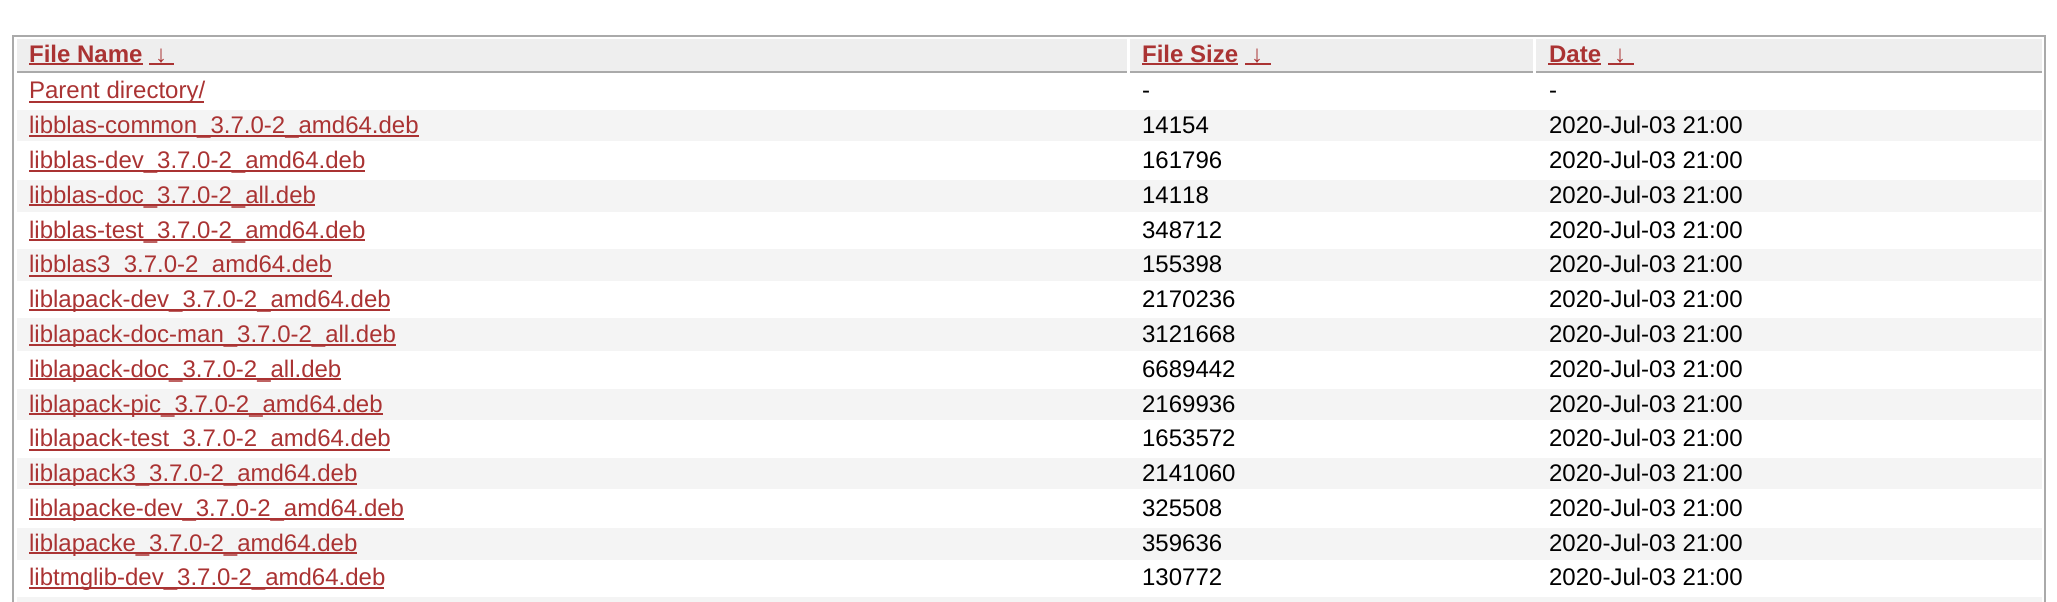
#include <cairo.h>
#include <math.h>
#include <stddef.h>

typedef struct { double x, y, w, h; unsigned color; } box_t;

static void ink(cairo_t *ctx, unsigned color) {
    cairo_set_source_rgb(ctx, (color >> 16) / 255.0, (color >> 8 & 255) / 255.0, (color & 255) / 255.0);
}

int main(void) {
    cairo_surface_t *surface = cairo_image_surface_create(CAIRO_FORMAT_RGB24, 2057, 602);
    cairo_t *ctx = cairo_create(surface);
    cairo_font_options_t *options = cairo_font_options_create();
    cairo_font_options_set_hint_metrics(options, CAIRO_HINT_METRICS_OFF);
    cairo_font_options_set_hint_style(options, CAIRO_HINT_STYLE_NONE);
    cairo_set_font_options(ctx, options);
    cairo_set_miter_limit(ctx, 4);
    ink(ctx, 0xFFFFFF);
    cairo_paint(ctx);
    cairo_rectangle(ctx, 13, 36, 2032, 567);
    ink(ctx, 0xAAAAAA);
    cairo_stroke(ctx);
    ink(ctx, 0xEEEEEE);
    cairo_rectangle(ctx, 17, 39, 1110, 32);
    cairo_fill(ctx);
    ink(ctx, 0xAAAAAA);
    cairo_rectangle(ctx, 17, 71, 1110, 2);
    cairo_fill(ctx);
    cairo_select_font_face(ctx, "Liberation Sans", CAIRO_FONT_SLANT_NORMAL, CAIRO_FONT_WEIGHT_BOLD);
    cairo_set_font_size(ctx, 24);
    ink(ctx, 0xAA3333);
    cairo_move_to(ctx, 29, 62);
    cairo_show_text(ctx, "File Name");
    cairo_rectangle(ctx, 29, 63, 114, 2);
    cairo_fill(ctx);
    cairo_move_to(ctx, 155, 62);
    cairo_show_text(ctx, "↓");
    {
        static const box_t items[] = {
            {149, 63, 25, 2, 0xAA3333},
            {1130, 39, 403, 32, 0xEEEEEE},
            {1130, 71, 403, 2, 0xAAAAAA},
        };
        for (size_t i = 0; i < sizeof items / sizeof *items; i++) {
            ink(ctx, items[i].color);
            cairo_rectangle(ctx, items[i].x, items[i].y, items[i].w, items[i].h);
            cairo_fill(ctx);
        }
    }
    ink(ctx, 0xAA3333);
    cairo_move_to(ctx, 1142, 62);
    cairo_show_text(ctx, "File Size");
    cairo_rectangle(ctx, 1142, 63, 96, 2);
    cairo_fill(ctx);
    cairo_move_to(ctx, 1251, 62);
    cairo_show_text(ctx, "↓");
    {
        static const box_t items[] = {
            {1245, 63, 26, 2, 0xAA3333},
            {1536, 39, 506, 32, 0xEEEEEE},
            {1536, 71, 506, 2, 0xAAAAAA},
        };
        for (size_t i = 0; i < sizeof items / sizeof *items; i++) {
            ink(ctx, items[i].color);
            cairo_rectangle(ctx, items[i].x, items[i].y, items[i].w, items[i].h);
            cairo_fill(ctx);
        }
    }
    ink(ctx, 0xAA3333);
    cairo_move_to(ctx, 1549, 62);
    cairo_show_text(ctx, "Date");
    cairo_rectangle(ctx, 1548, 63, 53, 2);
    cairo_fill(ctx);
    cairo_move_to(ctx, 1614, 62);
    cairo_show_text(ctx, "↓");
    cairo_rectangle(ctx, 1608, 63, 26, 2);
    cairo_fill(ctx);
    cairo_rectangle(ctx, 29, 101, 175, 2);
    cairo_fill(ctx);
    cairo_select_font_face(ctx, "Liberation Sans", CAIRO_FONT_SLANT_NORMAL, CAIRO_FONT_WEIGHT_NORMAL);
    cairo_move_to(ctx, 29, 98);
    cairo_show_text(ctx, "Parent directory/");
    ink(ctx, 0x000000);
    cairo_move_to(ctx, 1142, 98);
    cairo_show_text(ctx, "-");
    cairo_move_to(ctx, 1549, 98);
    cairo_show_text(ctx, "-");
    ink(ctx, 0xF4F4F4);
    cairo_rectangle(ctx, 17, 110, 2025, 31);
    cairo_fill(ctx);
    ink(ctx, 0xAA3333);
    cairo_rectangle(ctx, 29, 135, 390, 2);
    cairo_fill(ctx);
    cairo_move_to(ctx, 29, 133);
    cairo_show_text(ctx, "libblas-common_3.7.0-2_amd64.deb");
    ink(ctx, 0x000000);
    cairo_move_to(ctx, 1142, 133);
    cairo_show_text(ctx, "14154");
    cairo_move_to(ctx, 1549, 133);
    cairo_show_text(ctx, "2020-Jul-03 21:00");
    ink(ctx, 0xAA3333);
    cairo_rectangle(ctx, 29, 170, 336, 2);
    cairo_fill(ctx);
    cairo_move_to(ctx, 29, 168);
    cairo_show_text(ctx, "libblas-dev_3.7.0-2_amd64.deb");
    ink(ctx, 0x000000);
    cairo_move_to(ctx, 1142, 168);
    cairo_show_text(ctx, "161796");
    cairo_move_to(ctx, 1549, 168);
    cairo_show_text(ctx, "2020-Jul-03 21:00");
    ink(ctx, 0xF4F4F4);
    cairo_rectangle(ctx, 17, 180, 2025, 32);
    cairo_fill(ctx);
    ink(ctx, 0xAA3333);
    cairo_rectangle(ctx, 29, 204, 286, 2);
    cairo_fill(ctx);
    cairo_move_to(ctx, 29, 203);
    cairo_show_text(ctx, "libblas-doc_3.7.0-2_all.deb");
    ink(ctx, 0x000000);
    cairo_move_to(ctx, 1142, 203);
    cairo_show_text(ctx, "14118");
    cairo_move_to(ctx, 1549, 203);
    cairo_show_text(ctx, "2020-Jul-03 21:00");
    ink(ctx, 0xAA3333);
    cairo_rectangle(ctx, 29, 239, 336, 2);
    cairo_fill(ctx);
    cairo_move_to(ctx, 29, 238);
    cairo_show_text(ctx, "libblas-test_3.7.0-2_amd64.deb");
    ink(ctx, 0x000000);
    cairo_move_to(ctx, 1142, 238);
    cairo_show_text(ctx, "348712");
    cairo_move_to(ctx, 1549, 238);
    cairo_show_text(ctx, "2020-Jul-03 21:00");
    ink(ctx, 0xF4F4F4);
    cairo_rectangle(ctx, 17, 249, 2025, 32);
    cairo_fill(ctx);
    ink(ctx, 0xAA3333);
    cairo_rectangle(ctx, 29, 275, 303, 2);
    cairo_fill(ctx);
    cairo_move_to(ctx, 29, 272);
    cairo_show_text(ctx, "libblas3_3.7.0-2_amd64.deb");
    ink(ctx, 0x000000);
    cairo_move_to(ctx, 1142, 272);
    cairo_show_text(ctx, "155398");
    cairo_move_to(ctx, 1549, 272);
    cairo_show_text(ctx, "2020-Jul-03 21:00");
    ink(ctx, 0xAA3333);
    cairo_rectangle(ctx, 29, 309, 361, 2);
    cairo_fill(ctx);
    cairo_move_to(ctx, 29, 307);
    cairo_show_text(ctx, "liblapack-dev_3.7.0-2_amd64.deb");
    ink(ctx, 0x000000);
    cairo_move_to(ctx, 1142, 307);
    cairo_show_text(ctx, "2170236");
    cairo_move_to(ctx, 1549, 307);
    cairo_show_text(ctx, "2020-Jul-03 21:00");
    ink(ctx, 0xF4F4F4);
    cairo_rectangle(ctx, 17, 318, 2025, 33);
    cairo_fill(ctx);
    ink(ctx, 0xAA3333);
    cairo_rectangle(ctx, 29, 344, 367, 2);
    cairo_fill(ctx);
    cairo_move_to(ctx, 29, 342);
    cairo_show_text(ctx, "liblapack-doc-man_3.7.0-2_all.deb");
    ink(ctx, 0x000000);
    cairo_move_to(ctx, 1142, 342);
    cairo_show_text(ctx, "3121668");
    cairo_move_to(ctx, 1549, 342);
    cairo_show_text(ctx, "2020-Jul-03 21:00");
    ink(ctx, 0xAA3333);
    cairo_rectangle(ctx, 29, 378, 312, 2);
    cairo_fill(ctx);
    cairo_move_to(ctx, 29, 377);
    cairo_show_text(ctx, "liblapack-doc_3.7.0-2_all.deb");
    ink(ctx, 0x000000);
    cairo_move_to(ctx, 1142, 377);
    cairo_show_text(ctx, "6689442");
    cairo_move_to(ctx, 1549, 377);
    cairo_show_text(ctx, "2020-Jul-03 21:00");
    ink(ctx, 0xF4F4F4);
    cairo_rectangle(ctx, 17, 389, 2025, 31);
    cairo_fill(ctx);
    ink(ctx, 0xAA3333);
    cairo_rectangle(ctx, 29, 413, 354, 2);
    cairo_fill(ctx);
    cairo_move_to(ctx, 29, 412);
    cairo_show_text(ctx, "liblapack-pic_3.7.0-2_amd64.deb");
    ink(ctx, 0x000000);
    cairo_move_to(ctx, 1142, 412);
    cairo_show_text(ctx, "2169936");
    cairo_move_to(ctx, 1549, 412);
    cairo_show_text(ctx, "2020-Jul-03 21:00");
    ink(ctx, 0xAA3333);
    cairo_rectangle(ctx, 29, 449, 361, 2);
    cairo_fill(ctx);
    cairo_move_to(ctx, 29, 446);
    cairo_show_text(ctx, "liblapack-test_3.7.0-2_amd64.deb");
    ink(ctx, 0x000000);
    cairo_move_to(ctx, 1142, 446);
    cairo_show_text(ctx, "1653572");
    cairo_move_to(ctx, 1549, 446);
    cairo_show_text(ctx, "2020-Jul-03 21:00");
    ink(ctx, 0xF4F4F4);
    cairo_rectangle(ctx, 17, 458, 2025, 31);
    cairo_fill(ctx);
    ink(ctx, 0xAA3333);
    cairo_rectangle(ctx, 29, 483, 328, 2);
    cairo_fill(ctx);
    cairo_move_to(ctx, 29, 481);
    cairo_show_text(ctx, "liblapack3_3.7.0-2_amd64.deb");
    ink(ctx, 0x000000);
    cairo_move_to(ctx, 1142, 481);
    cairo_show_text(ctx, "2141060");
    cairo_move_to(ctx, 1549, 481);
    cairo_show_text(ctx, "2020-Jul-03 21:00");
    ink(ctx, 0xAA3333);
    cairo_rectangle(ctx, 29, 518, 375, 2);
    cairo_fill(ctx);
    cairo_move_to(ctx, 29, 516);
    cairo_show_text(ctx, "liblapacke-dev_3.7.0-2_amd64.deb");
    ink(ctx, 0x000000);
    cairo_move_to(ctx, 1142, 516);
    cairo_show_text(ctx, "325508");
    cairo_move_to(ctx, 1549, 516);
    cairo_show_text(ctx, "2020-Jul-03 21:00");
    ink(ctx, 0xF4F4F4);
    cairo_rectangle(ctx, 17, 528, 2025, 32);
    cairo_fill(ctx);
    ink(ctx, 0xAA3333);
    cairo_rectangle(ctx, 29, 552, 328, 2);
    cairo_fill(ctx);
    cairo_move_to(ctx, 29, 551);
    cairo_show_text(ctx, "liblapacke_3.7.0-2_amd64.deb");
    ink(ctx, 0x000000);
    cairo_move_to(ctx, 1142, 551);
    cairo_show_text(ctx, "359636");
    cairo_move_to(ctx, 1549, 551);
    cairo_show_text(ctx, "2020-Jul-03 21:00");
    ink(ctx, 0xAA3333);
    cairo_rectangle(ctx, 29, 587, 355, 2);
    cairo_fill(ctx);
    cairo_move_to(ctx, 29, 585);
    cairo_show_text(ctx, "libtmglib-dev_3.7.0-2_amd64.deb");
    ink(ctx, 0x000000);
    cairo_move_to(ctx, 1142, 585);
    cairo_show_text(ctx, "130772");
    cairo_move_to(ctx, 1549, 585);
    cairo_show_text(ctx, "2020-Jul-03 21:00");
    ink(ctx, 0xF4F4F4);
    cairo_rectangle(ctx, 17, 597, 2025, 5);
    cairo_fill(ctx);
    cairo_surface_write_to_png(surface, "image.png");
    cairo_font_options_destroy(options);
    cairo_destroy(ctx);
    cairo_surface_destroy(surface);
    return 0;
}
